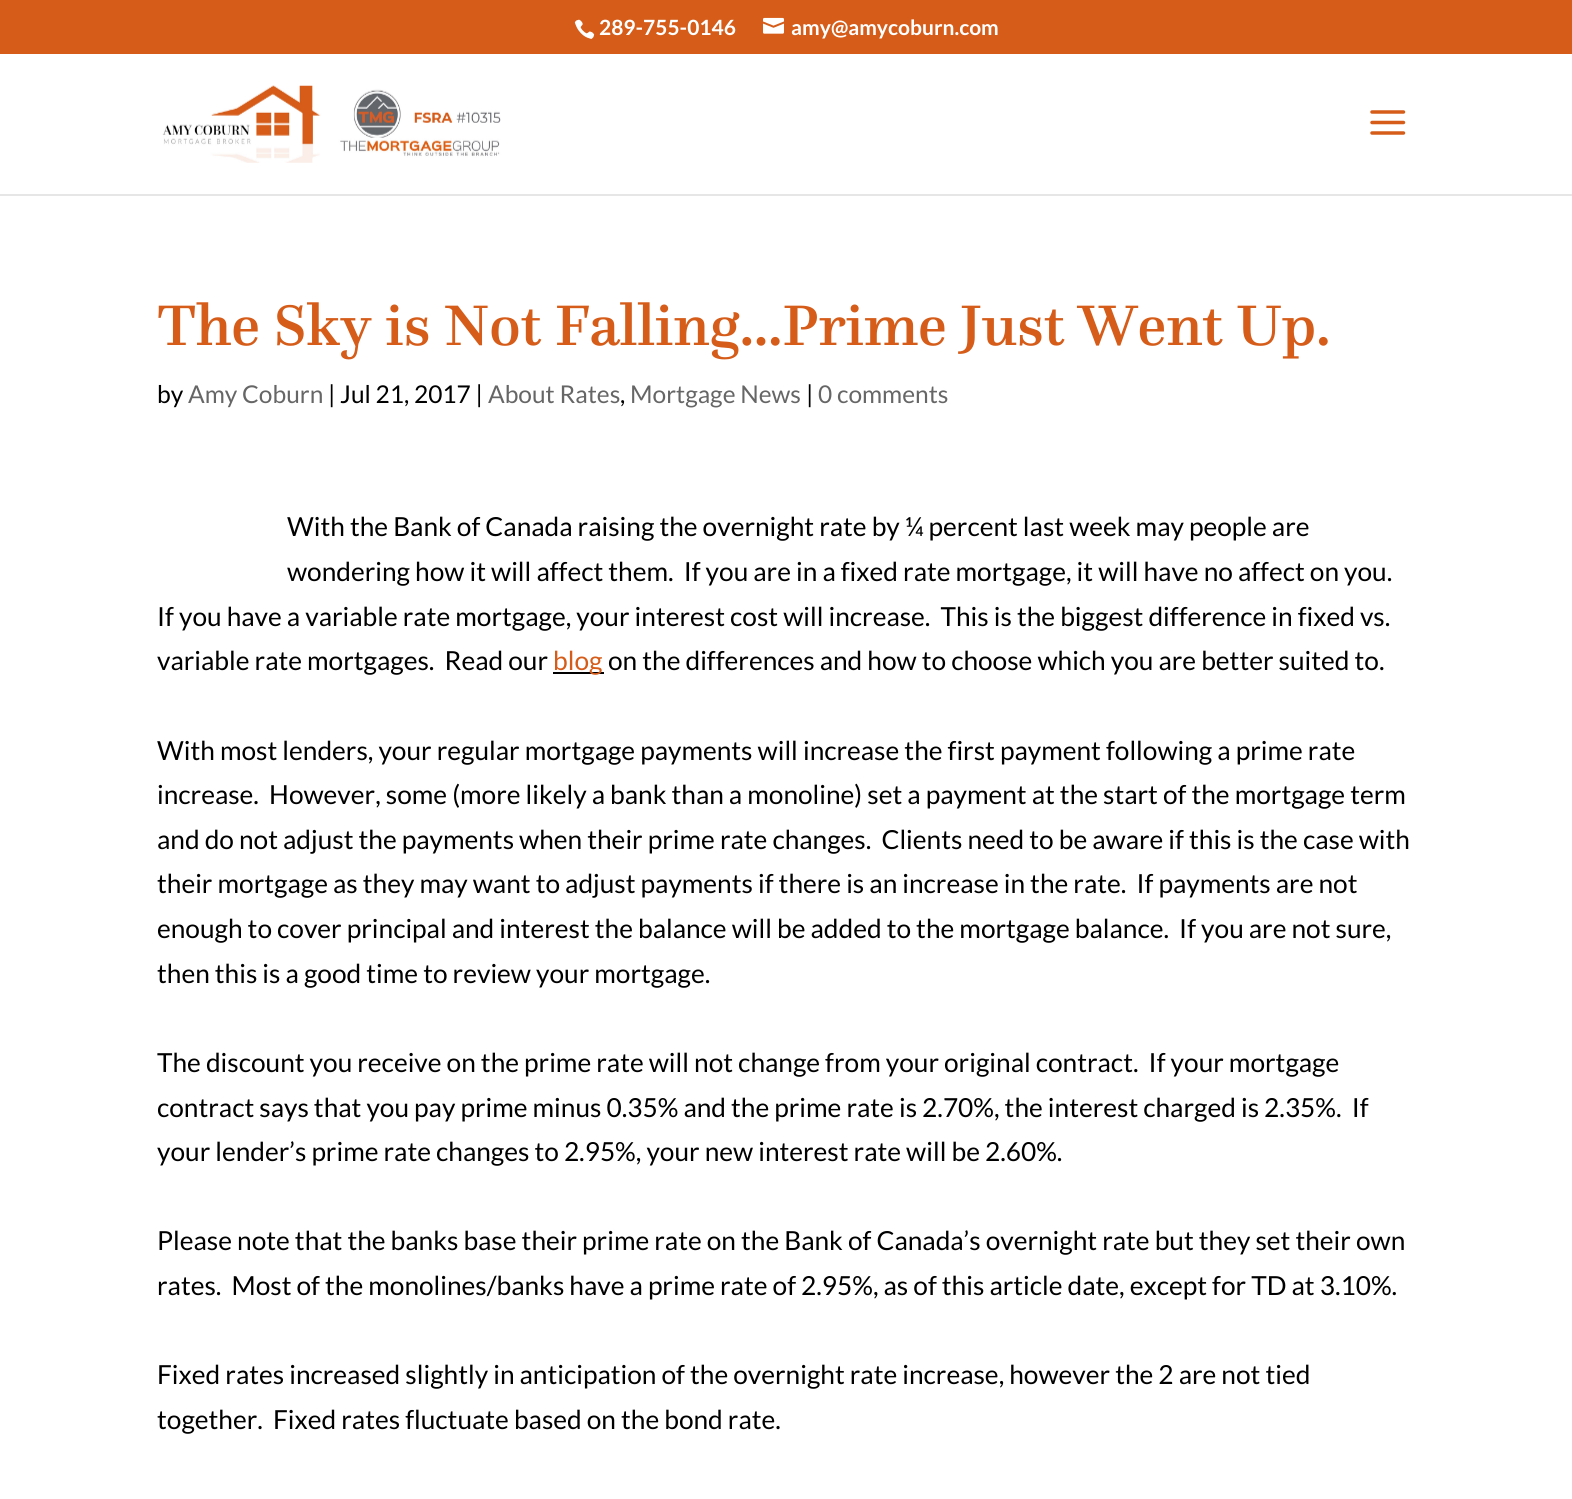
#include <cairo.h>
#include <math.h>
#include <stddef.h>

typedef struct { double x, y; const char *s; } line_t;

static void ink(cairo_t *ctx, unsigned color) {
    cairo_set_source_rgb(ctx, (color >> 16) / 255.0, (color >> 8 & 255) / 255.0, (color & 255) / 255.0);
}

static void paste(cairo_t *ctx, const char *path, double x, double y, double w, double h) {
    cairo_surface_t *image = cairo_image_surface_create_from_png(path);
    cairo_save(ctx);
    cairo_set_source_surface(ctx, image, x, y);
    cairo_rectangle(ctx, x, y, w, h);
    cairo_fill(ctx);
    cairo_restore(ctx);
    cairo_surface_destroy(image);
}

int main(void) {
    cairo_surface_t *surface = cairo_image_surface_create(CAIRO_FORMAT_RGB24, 1572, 1499);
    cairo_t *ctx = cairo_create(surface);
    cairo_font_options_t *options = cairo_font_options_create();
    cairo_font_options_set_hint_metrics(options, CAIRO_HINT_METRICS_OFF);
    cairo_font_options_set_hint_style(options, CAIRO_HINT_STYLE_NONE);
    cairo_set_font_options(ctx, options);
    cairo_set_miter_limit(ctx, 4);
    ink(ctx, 0xFFFFFF);
    cairo_paint(ctx);
    ink(ctx, 0xD55C19);
    cairo_rectangle(ctx, 0, 0, 1572, 54);
    cairo_fill(ctx);
    paste(ctx, "media/1.png", 574, 19, 21, 20);
    cairo_select_font_face(ctx, "Lato", CAIRO_FONT_SLANT_NORMAL, CAIRO_FONT_WEIGHT_BOLD);
    cairo_set_font_size(ctx, 21);
    ink(ctx, 0xFFFFFF);
    cairo_move_to(ctx, 599, 35);
    cairo_show_text(ctx, "289-755-0146");
    paste(ctx, "media/2.png", 763, 17, 21, 17);
    cairo_move_to(ctx, 791, 35);
    cairo_show_text(ctx, "amy@amycoburn.com");
    ink(ctx, 0xE6E6E6);
    cairo_rectangle(ctx, 0, 194, 1572, 2);
    cairo_fill(ctx);
    paste(ctx, "media/3.png", 162, 85, 339, 78);
    paste(ctx, "media/4.png", 1370, 110, 36, 25);
    cairo_select_font_face(ctx, "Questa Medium", CAIRO_FONT_SLANT_NORMAL, CAIRO_FONT_WEIGHT_NORMAL);
    cairo_set_font_size(ctx, 59.5);
    ink(ctx, 0xD55C19);
    cairo_move_to(ctx, 157, 345);
    cairo_show_text(ctx, "The Sky is Not Falling…Prime Just Went Up.");
    cairo_select_font_face(ctx, "Lato", CAIRO_FONT_SLANT_NORMAL, CAIRO_FONT_WEIGHT_NORMAL);
    cairo_set_font_size(ctx, 24.5);
    ink(ctx, 0x000000);
    cairo_move_to(ctx, 157, 403);
    cairo_show_text(ctx, "by");
    ink(ctx, 0x666666);
    cairo_move_to(ctx, 188, 403);
    cairo_show_text(ctx, "Amy Coburn");
    ink(ctx, 0x000000);
    cairo_move_to(ctx, 328, 403);
    cairo_show_text(ctx, "| Jul 21, 2017 |");
    ink(ctx, 0x666666);
    cairo_move_to(ctx, 488, 403);
    cairo_show_text(ctx, "About Rates");
    ink(ctx, 0x000000);
    cairo_move_to(ctx, 620, 403);
    cairo_show_text(ctx, ",");
    ink(ctx, 0x666666);
    cairo_move_to(ctx, 630, 403);
    cairo_show_text(ctx, "Mortgage News");
    ink(ctx, 0x000000);
    cairo_move_to(ctx, 806, 403);
    cairo_show_text(ctx, "|");
    ink(ctx, 0x666666);
    cairo_move_to(ctx, 818, 403);
    cairo_show_text(ctx, "0 comments");
    cairo_set_font_size(ctx, 26.25);
    ink(ctx, 0x000000);
    {
        static const line_t items[] = {
            {287, 536, "With the Bank of Canada raising the overnight rate by ¼ percent last week may people are"},
            {287, 581, "wondering how it will affect them.  If you are in a fixed rate mortgage, it will have no affect on you."},
            {157, 626, "If you have a variable rate mortgage, your interest cost will increase.  This is the biggest difference in fixed vs."},
            {157, 670, "variable rate mortgages.  Read our"},
        };
        for (size_t i = 0; i < sizeof items / sizeof *items; i++) {
            cairo_move_to(ctx, items[i].x, items[i].y);
            cairo_show_text(ctx, items[i].s);
        }
    }
    cairo_rectangle(ctx, 553, 672, 51, 2);
    cairo_fill(ctx);
    ink(ctx, 0xD55C19);
    cairo_move_to(ctx, 553, 670);
    cairo_show_text(ctx, "blog");
    ink(ctx, 0x000000);
    {
        static const line_t items[] = {
            {608, 670, "on the differences and how to choose which you are better suited to."},
            {157, 760, "With most lenders, your regular mortgage payments will increase the first payment following a prime rate"},
            {157, 804, "increase.  However, some (more likely a bank than a monoline) set a payment at the start of the mortgage term"},
            {157, 849, "and do not adjust the payments when their prime rate changes.  Clients need to be aware if this is the case with"},
            {157, 893, "their mortgage as they may want to adjust payments if there is an increase in the rate.  If payments are not"},
            {157, 938, "enough to cover principal and interest the balance will be added to the mortgage balance.  If you are not sure,"},
            {157, 983, "then this is a good time to review your mortgage."},
            {157, 1072, "The discount you receive on the prime rate will not change from your original contract.  If your mortgage"},
            {157, 1117, "contract says that you pay prime minus 0.35% and the prime rate is 2.70%, the interest charged is 2.35%.  If"},
            {157, 1161, "your lender’s prime rate changes to 2.95%, your new interest rate will be 2.60%."},
            {157, 1250, "Please note that the banks base their prime rate on the Bank of Canada’s overnight rate but they set their own"},
            {157, 1295, "rates.  Most of the monolines/banks have a prime rate of 2.95%, as of this article date, except for TD at 3.10%."},
            {157, 1384, "Fixed rates increased slightly in anticipation of the overnight rate increase, however the 2 are not tied"},
            {157, 1429, "together.  Fixed rates fluctuate based on the bond rate."},
        };
        for (size_t i = 0; i < sizeof items / sizeof *items; i++) {
            cairo_move_to(ctx, items[i].x, items[i].y);
            cairo_show_text(ctx, items[i].s);
        }
    }
    cairo_surface_write_to_png(surface, "image.png");
    cairo_font_options_destroy(options);
    cairo_destroy(ctx);
    cairo_surface_destroy(surface);
    return 0;
}
